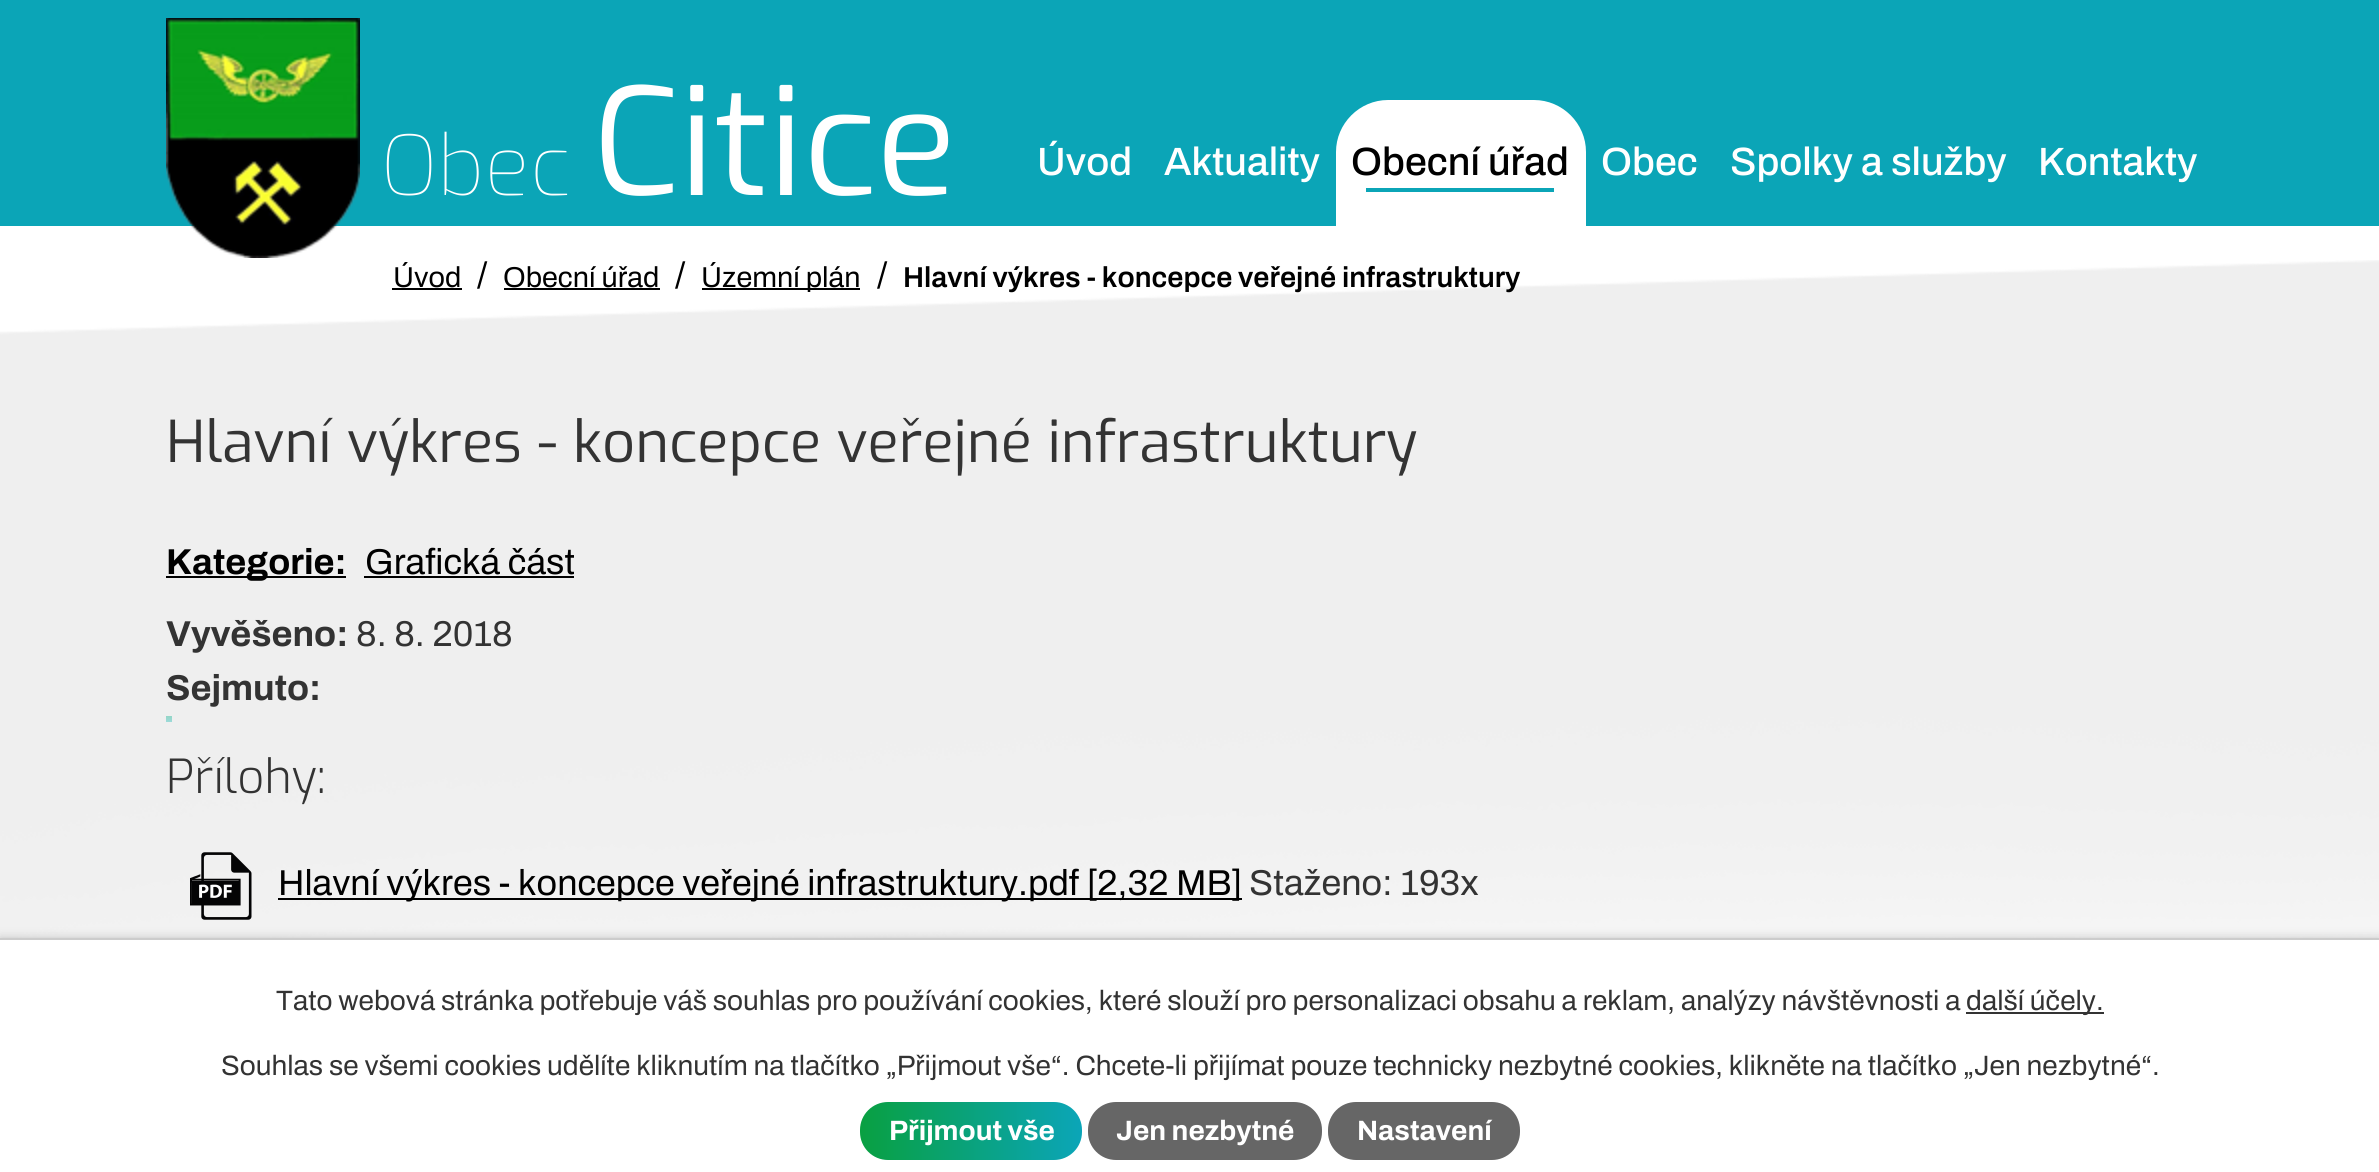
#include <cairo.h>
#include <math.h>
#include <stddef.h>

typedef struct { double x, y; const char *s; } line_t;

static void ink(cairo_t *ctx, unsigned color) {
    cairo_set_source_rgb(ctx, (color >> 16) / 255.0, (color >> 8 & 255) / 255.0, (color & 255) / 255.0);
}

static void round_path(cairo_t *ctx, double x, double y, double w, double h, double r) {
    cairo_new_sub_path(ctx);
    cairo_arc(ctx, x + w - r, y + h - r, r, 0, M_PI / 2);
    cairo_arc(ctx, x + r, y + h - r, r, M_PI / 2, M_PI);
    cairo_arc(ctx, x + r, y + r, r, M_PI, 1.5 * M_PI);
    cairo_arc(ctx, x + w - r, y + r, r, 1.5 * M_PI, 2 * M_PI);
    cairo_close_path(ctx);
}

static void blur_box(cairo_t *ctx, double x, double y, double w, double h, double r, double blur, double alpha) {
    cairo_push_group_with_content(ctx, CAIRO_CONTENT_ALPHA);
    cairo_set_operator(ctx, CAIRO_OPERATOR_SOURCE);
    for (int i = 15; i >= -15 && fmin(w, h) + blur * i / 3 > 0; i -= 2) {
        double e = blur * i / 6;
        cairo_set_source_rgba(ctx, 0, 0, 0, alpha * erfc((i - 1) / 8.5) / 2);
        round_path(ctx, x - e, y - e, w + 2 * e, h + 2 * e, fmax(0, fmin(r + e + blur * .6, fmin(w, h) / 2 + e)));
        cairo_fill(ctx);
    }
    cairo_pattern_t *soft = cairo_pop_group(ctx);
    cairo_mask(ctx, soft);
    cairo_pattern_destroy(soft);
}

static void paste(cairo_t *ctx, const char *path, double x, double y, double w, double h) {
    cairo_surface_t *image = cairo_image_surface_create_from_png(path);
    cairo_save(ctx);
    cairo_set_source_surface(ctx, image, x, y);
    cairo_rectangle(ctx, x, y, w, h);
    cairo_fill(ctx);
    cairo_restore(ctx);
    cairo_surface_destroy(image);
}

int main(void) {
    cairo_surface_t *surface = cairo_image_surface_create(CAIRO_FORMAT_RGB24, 2379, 1172);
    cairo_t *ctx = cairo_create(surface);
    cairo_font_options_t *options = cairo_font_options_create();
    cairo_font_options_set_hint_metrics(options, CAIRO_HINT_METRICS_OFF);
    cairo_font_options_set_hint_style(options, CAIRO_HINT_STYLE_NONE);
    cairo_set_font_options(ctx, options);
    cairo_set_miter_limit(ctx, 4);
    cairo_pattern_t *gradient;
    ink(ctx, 0xFFFFFF);
    cairo_paint(ctx);
    paste(ctx, "media/1.png", 0, 260, 2379, 678);
    ink(ctx, 0x0BA5B7);
    cairo_rectangle(ctx, 0, 0, 2379, 226);
    cairo_fill(ctx);
    paste(ctx, "media/2.png", 166, 18, 194, 240);
    cairo_select_font_face(ctx, "Exo Thin", CAIRO_FONT_SLANT_NORMAL, CAIRO_FONT_WEIGHT_NORMAL);
    cairo_set_font_size(ctx, 83);
    ink(ctx, 0xFFFFFF);
    cairo_move_to(ctx, 381, 195);
    cairo_show_text(ctx, "Obec");
    cairo_select_font_face(ctx, "Exo", CAIRO_FONT_SLANT_NORMAL, CAIRO_FONT_WEIGHT_NORMAL);
    cairo_set_font_size(ctx, 149);
    cairo_move_to(ctx, 593, 195);
    cairo_show_text(ctx, "Citice");
    cairo_select_font_face(ctx, "Archivo Medium", CAIRO_FONT_SLANT_NORMAL, CAIRO_FONT_WEIGHT_NORMAL);
    cairo_set_font_size(ctx, 39.5);
    cairo_move_to(ctx, 1037, 175);
    cairo_show_text(ctx, "Úvod");
    cairo_move_to(ctx, 1164, 175);
    cairo_show_text(ctx, "Aktuality");
    cairo_new_path(ctx);
    cairo_move_to(ctx, 1388, 100);
    cairo_line_to(ctx, 1534, 100);
    cairo_curve_to(ctx, 1562.5, 100, 1586, 123.5, 1586, 152);
    cairo_line_to(ctx, 1586, 230);
    cairo_line_to(ctx, 1336, 230);
    cairo_line_to(ctx, 1336, 152);
    cairo_curve_to(ctx, 1336, 123.5, 1359.5, 100, 1388, 100);
    cairo_close_path(ctx);
    cairo_fill(ctx);
    ink(ctx, 0x000000);
    cairo_move_to(ctx, 1351, 175);
    cairo_show_text(ctx, "Obecní úřad");
    ink(ctx, 0x0BA5B7);
    cairo_rectangle(ctx, 1366, 188, 188, 4);
    cairo_fill(ctx);
    ink(ctx, 0xFFFFFF);
    {
        static const line_t items[] = {
            {1601, 175, "Obec"},
            {1730, 175, "Spolky a služby"},
            {2038, 175, "Kontakty"},
        };
        for (size_t i = 0; i < sizeof items / sizeof *items; i++) {
            cairo_move_to(ctx, items[i].x, items[i].y);
            cairo_show_text(ctx, items[i].s);
        }
    }
    cairo_select_font_face(ctx, "Archivo", CAIRO_FONT_SLANT_NORMAL, CAIRO_FONT_WEIGHT_NORMAL);
    cairo_set_font_size(ctx, 28.8);
    ink(ctx, 0x000000);
    cairo_move_to(ctx, 393, 287);
    cairo_show_text(ctx, "Úvod");
    cairo_rectangle(ctx, 392, 288, 70, 2);
    cairo_fill(ctx);
    cairo_set_font_size(ctx, 35);
    cairo_move_to(ctx, 477, 287);
    cairo_show_text(ctx, "/");
    cairo_set_font_size(ctx, 28.8);
    cairo_move_to(ctx, 503, 287);
    cairo_show_text(ctx, "Obecní úřad");
    cairo_rectangle(ctx, 504, 288, 156, 2);
    cairo_fill(ctx);
    cairo_set_font_size(ctx, 35);
    cairo_move_to(ctx, 675, 287);
    cairo_show_text(ctx, "/");
    cairo_rectangle(ctx, 702, 288, 158, 2);
    cairo_fill(ctx);
    cairo_set_font_size(ctx, 28.8);
    cairo_move_to(ctx, 701, 287);
    cairo_show_text(ctx, "Územní plán");
    cairo_set_font_size(ctx, 35);
    cairo_move_to(ctx, 877, 287);
    cairo_show_text(ctx, "/");
    cairo_select_font_face(ctx, "Archivo SemiBold", CAIRO_FONT_SLANT_NORMAL, CAIRO_FONT_WEIGHT_NORMAL);
    cairo_set_font_size(ctx, 28.8);
    cairo_move_to(ctx, 903, 287);
    cairo_show_text(ctx, "Hlavní výkres - koncepce veřejné infrastruktury");
    cairo_select_font_face(ctx, "Exo", CAIRO_FONT_SLANT_NORMAL, CAIRO_FONT_WEIGHT_NORMAL);
    cairo_set_font_size(ctx, 57.6);
    ink(ctx, 0x333333);
    cairo_move_to(ctx, 166, 462);
    cairo_show_text(ctx, "Hlavní výkres - koncepce veřejné infrastruktury");
    ink(ctx, 0x000000);
    cairo_rectangle(ctx, 166, 576, 180, 2);
    cairo_fill(ctx);
    cairo_select_font_face(ctx, "Archivo", CAIRO_FONT_SLANT_NORMAL, CAIRO_FONT_WEIGHT_BOLD);
    cairo_set_font_size(ctx, 36);
    cairo_move_to(ctx, 166, 574);
    cairo_show_text(ctx, "Kategorie:");
    cairo_select_font_face(ctx, "Archivo", CAIRO_FONT_SLANT_NORMAL, CAIRO_FONT_WEIGHT_NORMAL);
    cairo_move_to(ctx, 365, 574);
    cairo_show_text(ctx, "Grafická část");
    cairo_rectangle(ctx, 364, 576, 210, 2);
    cairo_fill(ctx);
    cairo_select_font_face(ctx, "Archivo", CAIRO_FONT_SLANT_NORMAL, CAIRO_FONT_WEIGHT_BOLD);
    ink(ctx, 0x333333);
    cairo_move_to(ctx, 166, 646);
    cairo_show_text(ctx, "Vyvěšeno:");
    cairo_select_font_face(ctx, "Archivo", CAIRO_FONT_SLANT_NORMAL, CAIRO_FONT_WEIGHT_NORMAL);
    cairo_move_to(ctx, 356, 646);
    cairo_show_text(ctx, "8. 8. 2018");
    cairo_select_font_face(ctx, "Archivo", CAIRO_FONT_SLANT_NORMAL, CAIRO_FONT_WEIGHT_BOLD);
    cairo_move_to(ctx, 166, 700);
    cairo_show_text(ctx, "Sejmuto:");
    paste(ctx, "media/3.png", 166, 716, 6, 6);
    cairo_select_font_face(ctx, "Exo Light", CAIRO_FONT_SLANT_NORMAL, CAIRO_FONT_WEIGHT_NORMAL);
    cairo_set_font_size(ctx, 47);
    cairo_move_to(ctx, 166, 793);
    cairo_show_text(ctx, "Přílohy:");
    paste(ctx, "media/4.png", 190, 852, 62, 68);
    ink(ctx, 0x000000);
    cairo_rectangle(ctx, 278, 898, 964, 2);
    cairo_fill(ctx);
    cairo_select_font_face(ctx, "Archivo", CAIRO_FONT_SLANT_NORMAL, CAIRO_FONT_WEIGHT_NORMAL);
    cairo_set_font_size(ctx, 36);
    cairo_move_to(ctx, 278, 895);
    cairo_show_text(ctx, "Hlavní výkres - koncepce veřejné infrastruktury.pdf [2,32 MB]");
    ink(ctx, 0x333333);
    cairo_move_to(ctx, 1249, 895);
    cairo_show_text(ctx, "Staženo: 193x");
    ink(ctx, 0x000000);
    blur_box(ctx, 0, 938, 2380, 234, 0, 5, 0.2);
    ink(ctx, 0xFFFFFF);
    cairo_rectangle(ctx, 0, 940, 2379, 232);
    cairo_fill(ctx);
    ink(ctx, 0xCCCCCC);
    cairo_rectangle(ctx, 0, 938, 2379, 2);
    cairo_fill(ctx);
    cairo_set_font_size(ctx, 28);
    ink(ctx, 0x333333);
    cairo_move_to(ctx, 276, 1010);
    cairo_show_text(ctx, "Tato webová stránka potřebuje váš souhlas pro používání cookies, které slouží pro personalizaci obsahu a reklam, analýzy návštěvnosti a");
    cairo_rectangle(ctx, 1966, 1012, 138, 2);
    cairo_fill(ctx);
    cairo_move_to(ctx, 1966, 1010);
    cairo_show_text(ctx, "další účely.");
    cairo_move_to(ctx, 221, 1075);
    cairo_show_text(ctx, "Souhlas se všemi cookies udělíte kliknutím na tlačítko „Přijmout vše“. Chcete-li přijímat pouze technicky nezbytné cookies, klikněte na tlačítko „Jen nezbytné“.");
    gradient = cairo_pattern_create_linear(860, 1131, 1082, 1131);
    cairo_pattern_add_color_stop_rgba(gradient, 0, 0.035, 0.627, 0.255, 1);
    cairo_pattern_add_color_stop_rgba(gradient, 1, 0.043, 0.647, 0.722, 1);
    cairo_set_source(ctx, gradient);
    cairo_pattern_destroy(gradient);
    round_path(ctx, 860, 1102, 222, 58, 28);
    cairo_fill(ctx);
    cairo_select_font_face(ctx, "Archivo", CAIRO_FONT_SLANT_NORMAL, CAIRO_FONT_WEIGHT_BOLD);
    ink(ctx, 0xFFFFFF);
    cairo_move_to(ctx, 889, 1140);
    cairo_show_text(ctx, "Přijmout vše");
    ink(ctx, 0x666666);
    round_path(ctx, 1088, 1102, 234, 58, 28);
    cairo_fill(ctx);
    ink(ctx, 0xFFFFFF);
    cairo_move_to(ctx, 1116, 1140);
    cairo_show_text(ctx, "Jen nezbytné");
    ink(ctx, 0x666666);
    round_path(ctx, 1328, 1102, 192, 58, 28);
    cairo_fill(ctx);
    ink(ctx, 0xFFFFFF);
    cairo_move_to(ctx, 1357, 1140);
    cairo_show_text(ctx, "Nastavení");
    cairo_surface_write_to_png(surface, "image.png");
    cairo_font_options_destroy(options);
    cairo_destroy(ctx);
    cairo_surface_destroy(surface);
    return 0;
}
